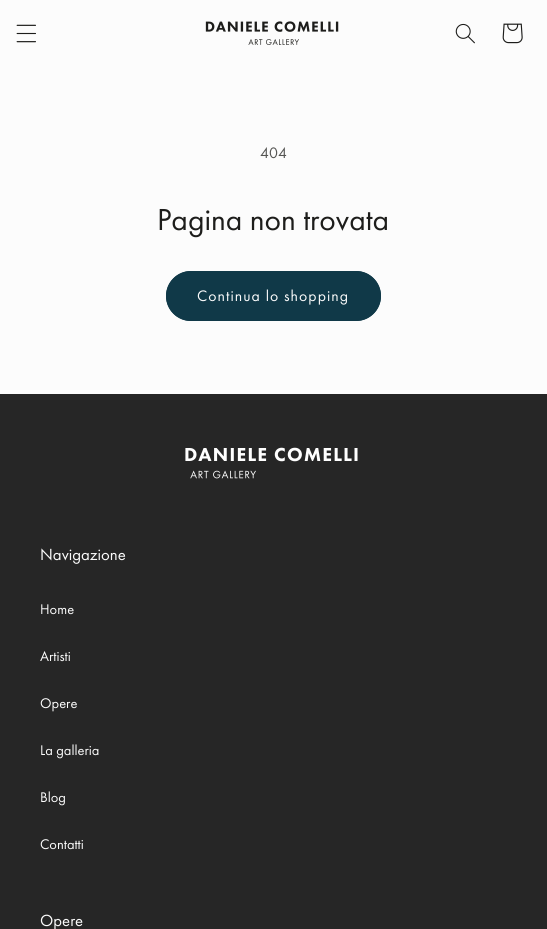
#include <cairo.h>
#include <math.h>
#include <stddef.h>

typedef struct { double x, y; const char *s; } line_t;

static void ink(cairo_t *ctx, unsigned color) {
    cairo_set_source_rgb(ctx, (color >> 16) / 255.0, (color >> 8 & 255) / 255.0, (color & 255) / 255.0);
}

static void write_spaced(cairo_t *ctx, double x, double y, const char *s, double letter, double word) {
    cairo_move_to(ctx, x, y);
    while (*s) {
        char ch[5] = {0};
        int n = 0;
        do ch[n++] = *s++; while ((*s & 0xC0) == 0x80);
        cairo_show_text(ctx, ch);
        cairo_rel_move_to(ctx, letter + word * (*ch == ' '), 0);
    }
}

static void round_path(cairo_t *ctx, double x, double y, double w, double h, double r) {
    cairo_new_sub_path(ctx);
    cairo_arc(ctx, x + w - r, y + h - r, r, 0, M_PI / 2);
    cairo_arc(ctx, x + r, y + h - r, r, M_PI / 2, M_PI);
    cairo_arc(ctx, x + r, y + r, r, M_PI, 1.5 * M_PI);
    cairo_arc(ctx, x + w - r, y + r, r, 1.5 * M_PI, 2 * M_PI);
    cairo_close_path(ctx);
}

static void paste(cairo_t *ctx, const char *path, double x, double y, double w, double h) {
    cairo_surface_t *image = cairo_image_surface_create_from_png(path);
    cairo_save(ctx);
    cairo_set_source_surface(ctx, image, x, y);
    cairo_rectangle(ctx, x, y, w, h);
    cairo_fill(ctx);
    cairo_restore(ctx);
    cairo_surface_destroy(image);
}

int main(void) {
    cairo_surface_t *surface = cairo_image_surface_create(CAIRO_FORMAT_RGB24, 547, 929);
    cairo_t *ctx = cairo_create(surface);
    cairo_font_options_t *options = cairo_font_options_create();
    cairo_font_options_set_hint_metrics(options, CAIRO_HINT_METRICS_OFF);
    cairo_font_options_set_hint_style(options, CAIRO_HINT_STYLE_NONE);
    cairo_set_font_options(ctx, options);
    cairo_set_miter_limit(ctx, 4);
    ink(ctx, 0xFCFCFC);
    cairo_paint(ctx);
    paste(ctx, "media/1.png", 16, 24, 20, 19);
    paste(ctx, "media/2.png", 205, 21, 134, 24);
    paste(ctx, "media/3.png", 455, 23, 20, 21);
    paste(ctx, "media/4.png", 502, 23, 21, 21);
    cairo_select_font_face(ctx, "Futura PT", CAIRO_FONT_SLANT_NORMAL, CAIRO_FONT_WEIGHT_NORMAL);
    cairo_set_font_size(ctx, 15.75);
    ink(ctx, 0x555553);
    cairo_move_to(ctx, 260, 158);
    cairo_show_text(ctx, "404");
    cairo_set_font_size(ctx, 31.5);
    ink(ctx, 0x1D1D1B);
    cairo_move_to(ctx, 157, 230);
    cairo_show_text(ctx, "Pagina non trovata");
    ink(ctx, 0x103948);
    round_path(ctx, 166, 271, 215, 50, 25);
    cairo_fill(ctx);
    round_path(ctx, 166.5, 271.5, 214, 49, 24.5);
    cairo_set_line_width(ctx, 1);
    cairo_stroke(ctx);
    cairo_set_font_size(ctx, 15.75);
    ink(ctx, 0xFCFCFC);
    write_spaced(ctx, 197, 301, "Continua lo shopping", 1.05, 0);
    ink(ctx, 0x262626);
    cairo_rectangle(ctx, 0, 394, 547, 535);
    cairo_fill(ctx);
    paste(ctx, "media/5.png", 185, 447, 173, 32);
    cairo_set_font_size(ctx, 16.75);
    ink(ctx, 0xFCFCFC);
    cairo_move_to(ctx, 40, 560);
    cairo_show_text(ctx, "Navigazione");
    cairo_set_font_size(ctx, 14.5);
    {
        static const line_t items[] = {
            {40, 614, "Home"},
            {40, 661, "Artisti"},
            {40, 708, "Opere"},
            {40, 755, "La galleria"},
            {40, 802, "Blog"},
            {40, 849, "Contatti"},
        };
        for (size_t i = 0; i < sizeof items / sizeof *items; i++) {
            cairo_move_to(ctx, items[i].x, items[i].y);
            cairo_show_text(ctx, items[i].s);
        }
    }
    cairo_set_font_size(ctx, 16.75);
    cairo_move_to(ctx, 40, 926);
    cairo_show_text(ctx, "Opere");
    cairo_surface_write_to_png(surface, "image.png");
    cairo_font_options_destroy(options);
    cairo_destroy(ctx);
    cairo_surface_destroy(surface);
    return 0;
}
